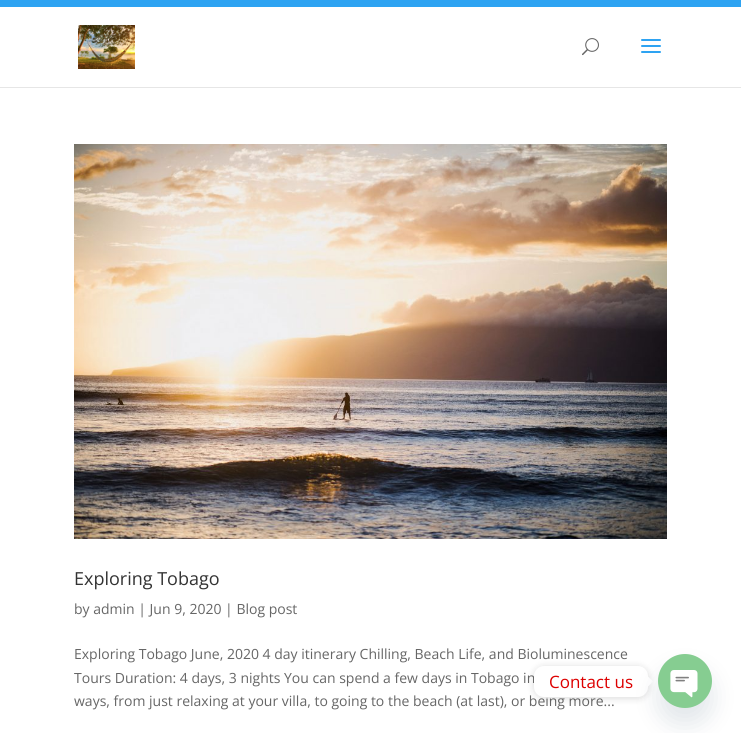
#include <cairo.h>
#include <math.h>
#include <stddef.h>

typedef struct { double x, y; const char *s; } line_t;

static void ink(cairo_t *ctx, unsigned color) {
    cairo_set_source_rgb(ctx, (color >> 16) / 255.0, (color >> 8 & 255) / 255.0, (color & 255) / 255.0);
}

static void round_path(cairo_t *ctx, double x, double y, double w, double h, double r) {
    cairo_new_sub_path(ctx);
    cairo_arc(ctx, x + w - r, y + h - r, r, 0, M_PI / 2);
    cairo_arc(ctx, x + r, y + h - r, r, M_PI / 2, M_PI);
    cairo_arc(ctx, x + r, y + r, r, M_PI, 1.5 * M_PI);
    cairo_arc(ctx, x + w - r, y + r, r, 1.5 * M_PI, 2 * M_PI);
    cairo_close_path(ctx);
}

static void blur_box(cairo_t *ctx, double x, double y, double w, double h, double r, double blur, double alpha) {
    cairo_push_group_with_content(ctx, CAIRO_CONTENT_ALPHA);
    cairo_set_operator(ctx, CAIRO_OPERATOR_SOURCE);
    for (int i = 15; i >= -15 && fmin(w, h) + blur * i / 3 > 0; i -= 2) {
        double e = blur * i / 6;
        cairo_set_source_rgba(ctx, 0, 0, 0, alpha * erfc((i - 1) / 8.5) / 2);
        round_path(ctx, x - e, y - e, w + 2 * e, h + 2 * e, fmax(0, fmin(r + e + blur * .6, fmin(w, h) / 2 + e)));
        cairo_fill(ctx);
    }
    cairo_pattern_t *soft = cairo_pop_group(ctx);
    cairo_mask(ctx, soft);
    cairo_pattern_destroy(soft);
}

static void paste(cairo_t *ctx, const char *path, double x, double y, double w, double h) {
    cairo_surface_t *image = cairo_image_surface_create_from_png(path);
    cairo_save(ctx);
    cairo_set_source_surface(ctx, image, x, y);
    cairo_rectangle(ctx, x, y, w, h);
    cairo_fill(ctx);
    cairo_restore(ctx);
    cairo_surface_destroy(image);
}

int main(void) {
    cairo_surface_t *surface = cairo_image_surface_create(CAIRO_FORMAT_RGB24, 741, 733);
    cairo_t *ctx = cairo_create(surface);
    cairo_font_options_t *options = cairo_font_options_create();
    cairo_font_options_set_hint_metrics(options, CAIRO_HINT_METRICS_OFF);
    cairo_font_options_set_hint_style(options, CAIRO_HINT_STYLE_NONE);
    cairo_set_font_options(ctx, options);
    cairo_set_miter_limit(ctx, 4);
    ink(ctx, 0xFFFFFF);
    cairo_paint(ctx);
    ink(ctx, 0x2EA3F2);
    cairo_rectangle(ctx, 0, 0, 741, 7);
    cairo_fill(ctx);
    ink(ctx, 0xE6E6E6);
    cairo_rectangle(ctx, 0, 87, 741, 1);
    cairo_fill(ctx);
    paste(ctx, "media/1.png", 78, 25, 57, 44);
    paste(ctx, "media/2.png", 582, 38, 17, 18);
    paste(ctx, "media/3.png", 641, 39, 20, 14);
    paste(ctx, "media/4.png", 74, 144, 593, 395);
    cairo_select_font_face(ctx, "Open Sans", CAIRO_FONT_SLANT_NORMAL, CAIRO_FONT_WEIGHT_NORMAL);
    cairo_set_font_size(ctx, 18);
    ink(ctx, 0x333333);
    cairo_move_to(ctx, 74, 585);
    cairo_show_text(ctx, "Exploring Tobago");
    cairo_set_font_size(ctx, 14);
    ink(ctx, 0x666666);
    {
        static const line_t items[] = {
            {74, 614, "by admin | Jun 9, 2020 | Blog post"},
            {74, 659, "Exploring Tobago June, 2020 4 day itinerary Chilling, Beach Life, and Bioluminescence"},
            {74, 683, "Tours Duration: 4 days, 3 nights You can spend a few days in Tobago in"},
            {74, 706, "ways, from just relaxing at your villa, to going to the beach (at last), or being more..."},
        };
        for (size_t i = 0; i < sizeof items / sizeof *items; i++) {
            cairo_move_to(ctx, items[i].x, items[i].y);
            cairo_show_text(ctx, items[i].s);
        }
    }
    ink(ctx, 0x000000);
    blur_box(ctx, 534, 667, 114, 31, 10, 4, 0.15);
    ink(ctx, 0xFFFFFF);
    round_path(ctx, 534, 666, 114, 31, 10);
    cairo_fill(ctx);
    cairo_set_font_size(ctx, 17);
    ink(ctx, 0xDD0000);
    cairo_move_to(ctx, 549, 688);
    cairo_show_text(ctx, "Contact us");
    ink(ctx, 0xFFFFFF);
    cairo_new_path(ctx);
    cairo_move_to(ctx, 648, 686.5);
    cairo_line_to(ctx, 648, 676.5);
    cairo_line_to(ctx, 653, 681.5);
    cairo_close_path(ctx);
    cairo_fill(ctx);
    ink(ctx, 0x49687E);
    blur_box(ctx, 658, 670, 54, 54, 27, 12, 0.16);
    paste(ctx, "media/5.png", 658, 654, 54, 54);
    cairo_surface_write_to_png(surface, "image.png");
    cairo_font_options_destroy(options);
    cairo_destroy(ctx);
    cairo_surface_destroy(surface);
    return 0;
}
